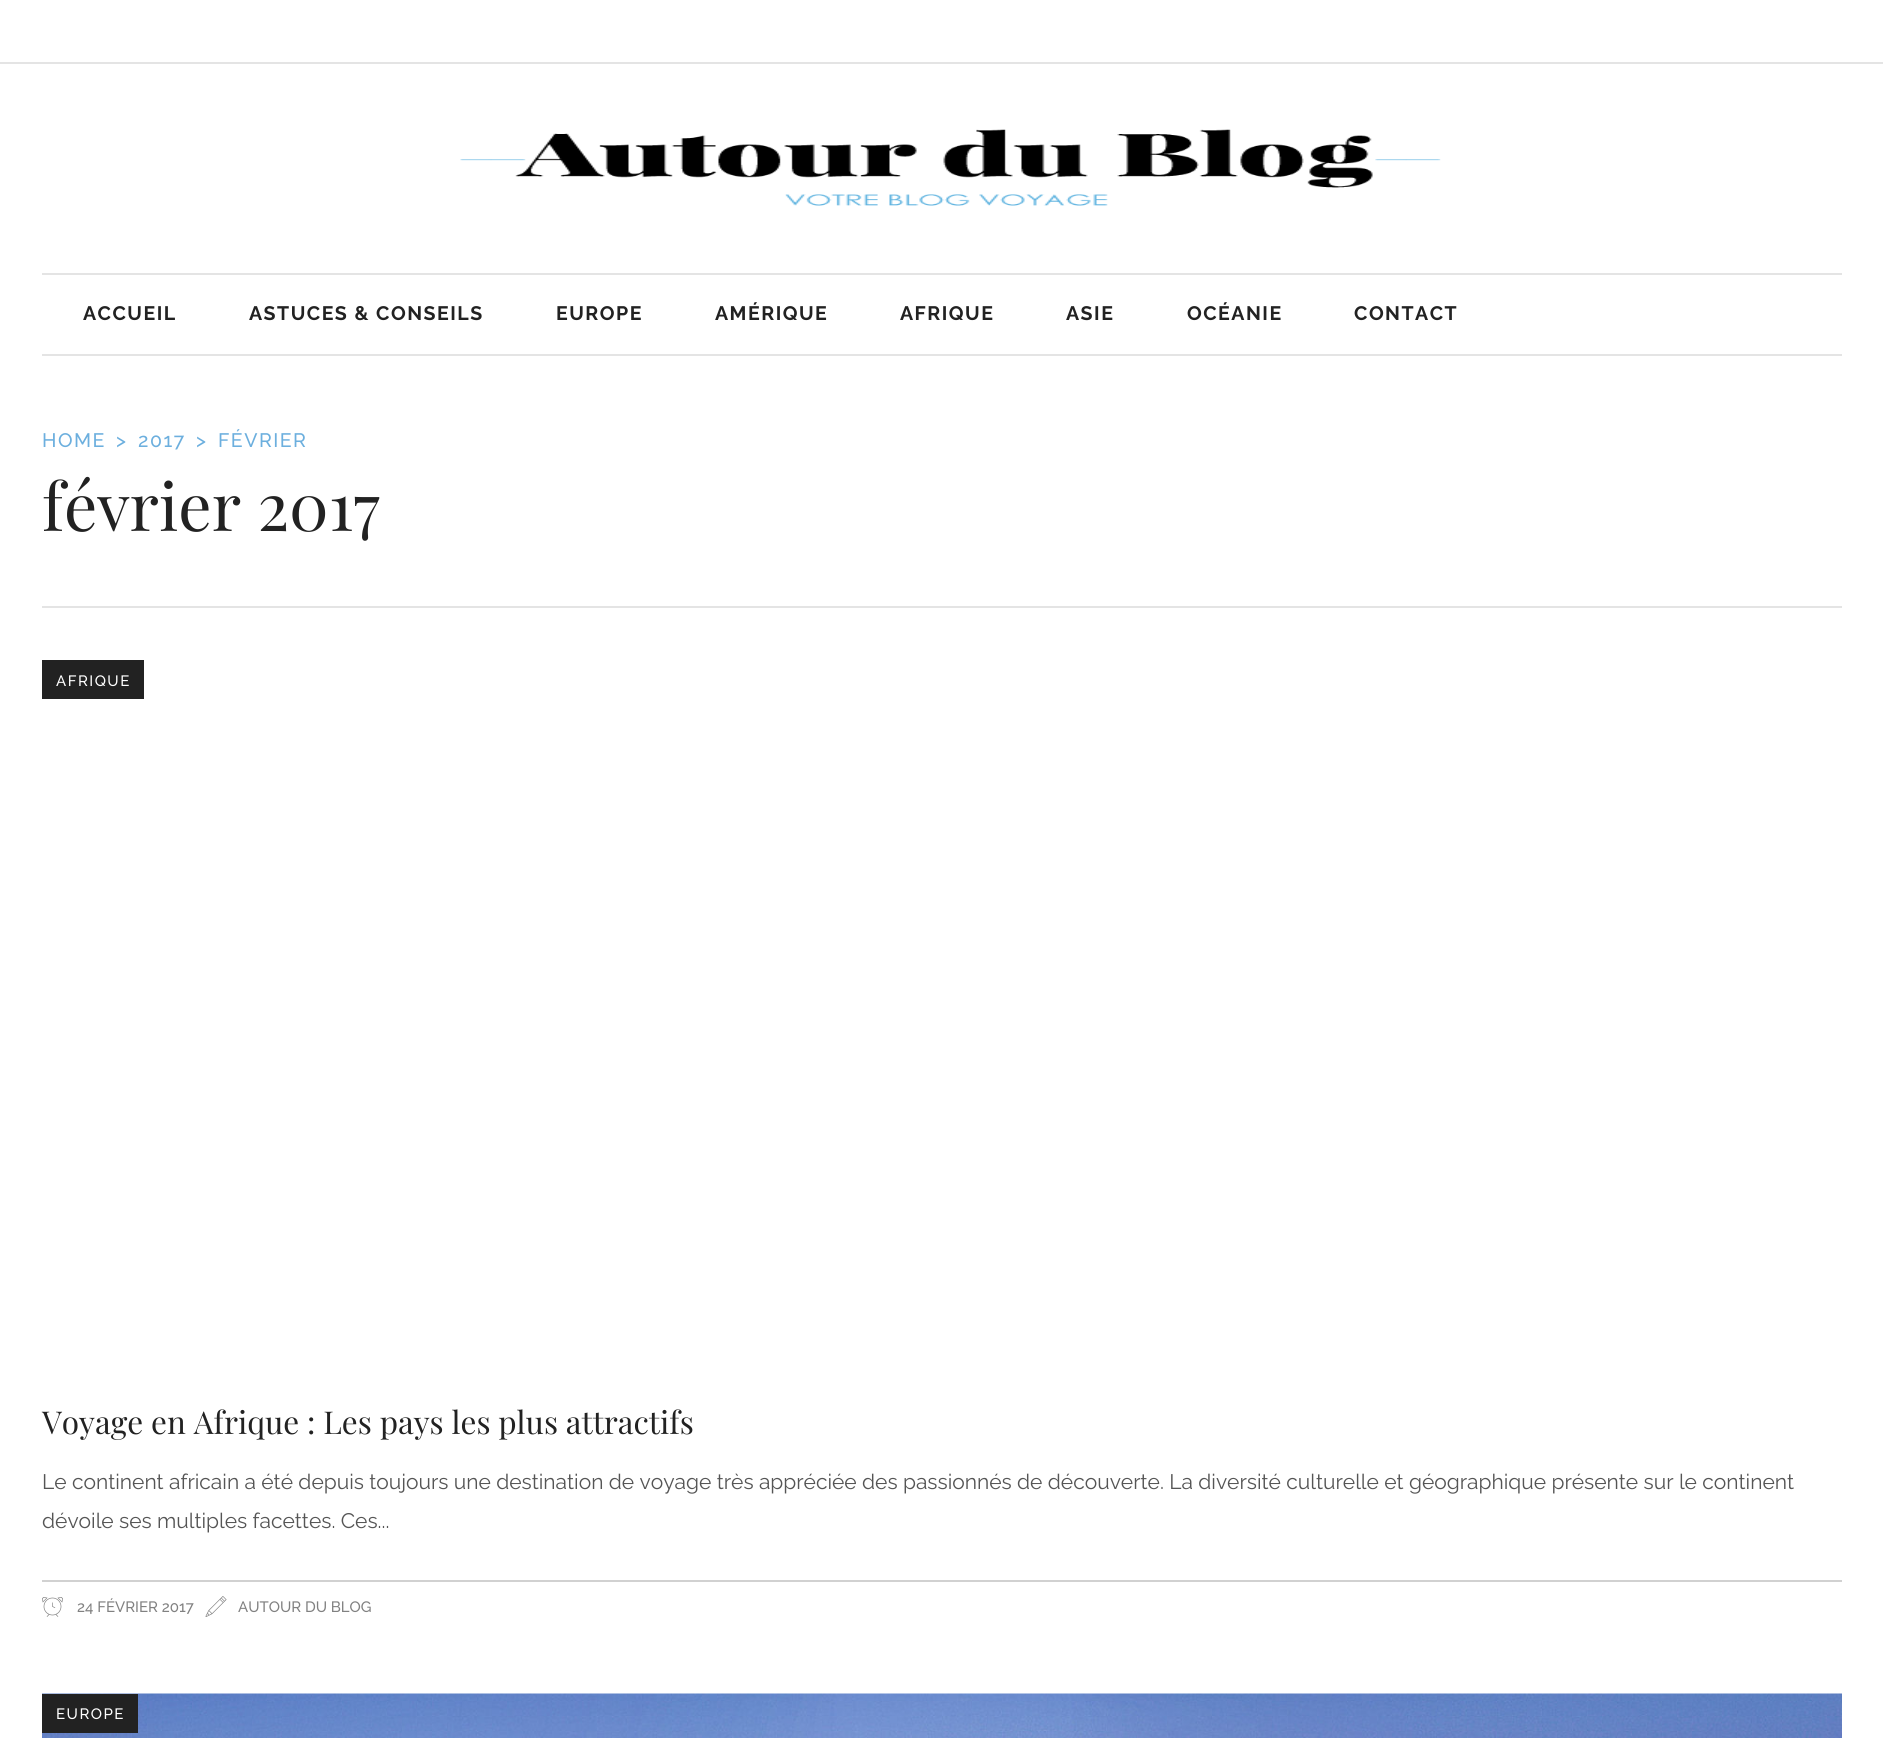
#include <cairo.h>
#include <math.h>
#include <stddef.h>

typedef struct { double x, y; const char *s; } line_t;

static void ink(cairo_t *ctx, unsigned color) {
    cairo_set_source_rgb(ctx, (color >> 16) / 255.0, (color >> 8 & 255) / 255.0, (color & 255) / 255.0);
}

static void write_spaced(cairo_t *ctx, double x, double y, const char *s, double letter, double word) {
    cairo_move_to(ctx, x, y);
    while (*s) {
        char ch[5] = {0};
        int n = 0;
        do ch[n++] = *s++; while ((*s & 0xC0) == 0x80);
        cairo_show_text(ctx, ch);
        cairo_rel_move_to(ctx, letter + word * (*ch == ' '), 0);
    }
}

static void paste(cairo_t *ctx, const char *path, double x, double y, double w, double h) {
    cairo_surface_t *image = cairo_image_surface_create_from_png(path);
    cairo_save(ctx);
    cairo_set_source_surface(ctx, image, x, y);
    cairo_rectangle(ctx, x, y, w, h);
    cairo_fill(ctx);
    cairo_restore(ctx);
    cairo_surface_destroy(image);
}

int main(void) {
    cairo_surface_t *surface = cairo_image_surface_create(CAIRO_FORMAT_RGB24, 1883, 1738);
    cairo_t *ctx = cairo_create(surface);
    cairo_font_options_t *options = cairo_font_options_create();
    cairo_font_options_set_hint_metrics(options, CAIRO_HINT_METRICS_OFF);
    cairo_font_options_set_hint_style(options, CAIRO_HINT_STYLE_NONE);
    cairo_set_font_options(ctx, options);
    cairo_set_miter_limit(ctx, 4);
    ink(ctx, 0xFFFFFF);
    cairo_paint(ctx);
    ink(ctx, 0xE4E4E4);
    cairo_rectangle(ctx, 0, 62, 1883, 2);
    cairo_fill(ctx);
    paste(ctx, "media/1.png", 460, 129, 981, 77);
    cairo_rectangle(ctx, 42, 273, 1800, 2);
    cairo_fill(ctx);
    cairo_rectangle(ctx, 42, 354, 1800, 2);
    cairo_fill(ctx);
    cairo_select_font_face(ctx, "Raleway", CAIRO_FONT_SLANT_NORMAL, CAIRO_FONT_WEIGHT_BOLD);
    cairo_set_font_size(ctx, 19.5);
    ink(ctx, 0x222222);
    {
        static const line_t items[] = {
            {83, 320, "ACCUEIL"},
            {249, 320, "ASTUCES & CONSEILS"},
            {556, 320, "EUROPE"},
            {715, 320, "AMÉRIQUE"},
            {900, 320, "AFRIQUE"},
            {1066, 320, "ASIE"},
            {1187, 320, "OCÉANIE"},
            {1354, 320, "CONTACT"},
        };
        for (size_t i = 0; i < sizeof items / sizeof *items; i++) {
            write_spaced(ctx, items[i].x, items[i].y, items[i].s, 1.5, 0);
        }
    }
    ink(ctx, 0xE4E4E4);
    cairo_rectangle(ctx, 42, 606, 1800, 2);
    cairo_fill(ctx);
    cairo_select_font_face(ctx, "Raleway Medium", CAIRO_FONT_SLANT_NORMAL, CAIRO_FONT_WEIGHT_NORMAL);
    ink(ctx, 0x6CAFDE);
    {
        static const line_t items[] = {
            {42, 447, "HOME"},
            {116, 447, ">"},
            {138, 447, "2017"},
            {196, 447, ">"},
            {218, 447, "FÉVRIER"},
        };
        for (size_t i = 0; i < sizeof items / sizeof *items; i++) {
            write_spaced(ctx, items[i].x, items[i].y, items[i].s, 1.5, 0);
        }
    }
    cairo_select_font_face(ctx, "Playfair Display", CAIRO_FONT_SLANT_NORMAL, CAIRO_FONT_WEIGHT_NORMAL);
    cairo_set_font_size(ctx, 66);
    ink(ctx, 0x222222);
    cairo_move_to(ctx, 42, 531);
    cairo_show_text(ctx, "février 2017");
    cairo_rectangle(ctx, 42, 660, 102, 39);
    cairo_fill(ctx);
    cairo_select_font_face(ctx, "Raleway Medium", CAIRO_FONT_SLANT_NORMAL, CAIRO_FONT_WEIGHT_NORMAL);
    cairo_set_font_size(ctx, 15);
    ink(ctx, 0xFFFFFF);
    write_spaced(ctx, 56, 686, "AFRIQUE", 1.5, 0);
    cairo_select_font_face(ctx, "Playfair Display", CAIRO_FONT_SLANT_NORMAL, CAIRO_FONT_WEIGHT_NORMAL);
    cairo_set_font_size(ctx, 31.5);
    ink(ctx, 0x222222);
    cairo_move_to(ctx, 42, 1434);
    cairo_show_text(ctx, "Voyage en Afrique : Les pays les plus attractifs");
    cairo_select_font_face(ctx, "Raleway", CAIRO_FONT_SLANT_NORMAL, CAIRO_FONT_WEIGHT_NORMAL);
    cairo_set_font_size(ctx, 21);
    ink(ctx, 0x555555);
    cairo_move_to(ctx, 42, 1489);
    cairo_show_text(ctx, "Le continent africain a été depuis toujours une destination de voyage très appréciée des passionnés de découverte. La diversité culturelle et géographique présente sur le continent");
    cairo_move_to(ctx, 42, 1528);
    cairo_show_text(ctx, "dévoile ses multiples facettes. Ces...");
    ink(ctx, 0xD1D1D1);
    cairo_rectangle(ctx, 42, 1580, 1800, 2);
    cairo_fill(ctx);
    paste(ctx, "media/2.png", 42, 1597, 21, 20);
    cairo_select_font_face(ctx, "Raleway Medium", CAIRO_FONT_SLANT_NORMAL, CAIRO_FONT_WEIGHT_NORMAL);
    cairo_set_font_size(ctx, 15);
    ink(ctx, 0x818181);
    cairo_move_to(ctx, 77, 1612);
    cairo_show_text(ctx, "24 FÉVRIER 2017");
    paste(ctx, "media/3.png", 205, 1596, 22, 21);
    cairo_move_to(ctx, 238, 1612);
    cairo_show_text(ctx, "AUTOUR DU BLOG");
    paste(ctx, "media/4.png", 42, 1693, 1800, 45);
    ink(ctx, 0x222222);
    cairo_rectangle(ctx, 42, 1694, 96, 39);
    cairo_fill(ctx);
    ink(ctx, 0xFFFFFF);
    write_spaced(ctx, 56, 1719, "EUROPE", 1.5, 0);
    cairo_surface_write_to_png(surface, "image.png");
    cairo_font_options_destroy(options);
    cairo_destroy(ctx);
    cairo_surface_destroy(surface);
    return 0;
}
